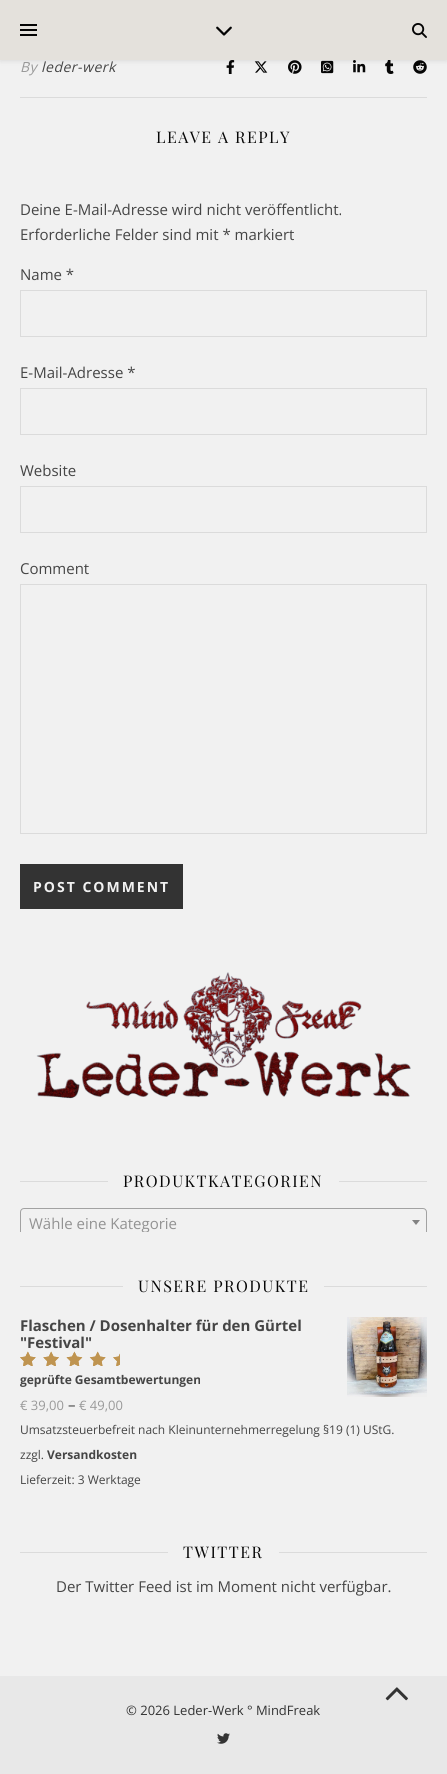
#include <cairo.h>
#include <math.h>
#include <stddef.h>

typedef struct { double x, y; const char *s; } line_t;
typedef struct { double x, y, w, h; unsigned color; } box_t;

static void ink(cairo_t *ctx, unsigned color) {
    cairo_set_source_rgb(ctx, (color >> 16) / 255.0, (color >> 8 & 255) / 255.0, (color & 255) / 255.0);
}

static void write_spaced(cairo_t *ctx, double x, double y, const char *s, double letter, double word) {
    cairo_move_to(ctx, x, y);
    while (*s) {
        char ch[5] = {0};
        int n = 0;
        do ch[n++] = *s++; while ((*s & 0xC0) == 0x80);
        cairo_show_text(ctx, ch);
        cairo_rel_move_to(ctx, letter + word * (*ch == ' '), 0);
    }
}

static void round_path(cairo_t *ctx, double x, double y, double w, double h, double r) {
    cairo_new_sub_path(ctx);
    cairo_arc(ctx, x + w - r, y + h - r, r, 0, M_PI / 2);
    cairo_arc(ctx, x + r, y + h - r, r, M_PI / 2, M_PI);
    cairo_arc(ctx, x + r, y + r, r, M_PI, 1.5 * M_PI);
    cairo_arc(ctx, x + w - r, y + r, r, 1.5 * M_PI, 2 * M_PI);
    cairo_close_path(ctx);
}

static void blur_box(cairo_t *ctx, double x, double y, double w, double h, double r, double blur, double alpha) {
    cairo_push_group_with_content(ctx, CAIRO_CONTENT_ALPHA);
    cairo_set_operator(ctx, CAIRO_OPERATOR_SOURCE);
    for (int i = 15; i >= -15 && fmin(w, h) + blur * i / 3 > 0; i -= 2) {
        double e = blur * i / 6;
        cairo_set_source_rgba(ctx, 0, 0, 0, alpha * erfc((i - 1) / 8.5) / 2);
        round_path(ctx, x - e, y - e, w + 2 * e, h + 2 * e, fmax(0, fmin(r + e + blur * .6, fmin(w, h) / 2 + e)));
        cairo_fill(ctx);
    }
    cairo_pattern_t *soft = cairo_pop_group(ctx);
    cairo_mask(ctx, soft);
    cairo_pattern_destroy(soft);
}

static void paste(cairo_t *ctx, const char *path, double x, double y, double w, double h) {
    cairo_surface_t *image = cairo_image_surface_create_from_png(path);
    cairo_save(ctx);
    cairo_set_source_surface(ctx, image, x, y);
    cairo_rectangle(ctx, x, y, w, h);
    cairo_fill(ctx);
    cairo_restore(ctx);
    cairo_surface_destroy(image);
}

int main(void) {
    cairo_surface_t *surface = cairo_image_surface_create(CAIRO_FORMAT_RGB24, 447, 1774);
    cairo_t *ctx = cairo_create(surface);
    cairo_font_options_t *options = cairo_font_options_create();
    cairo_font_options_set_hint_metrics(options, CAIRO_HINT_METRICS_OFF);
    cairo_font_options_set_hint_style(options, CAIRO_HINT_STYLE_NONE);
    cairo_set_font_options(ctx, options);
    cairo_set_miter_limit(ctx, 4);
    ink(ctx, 0xF1F1F1);
    cairo_paint(ctx);
    paste(ctx, "media/3.png", 226, 60, 9, 14);
    paste(ctx, "media/4.png", 254, 61, 14, 12);
    paste(ctx, "media/5.png", 288, 60, 14, 14);
    paste(ctx, "media/6.png", 321, 60, 13, 14);
    paste(ctx, "media/7.png", 353, 60, 13, 13);
    paste(ctx, "media/8.png", 385, 60, 9, 14);
    paste(ctx, "media/9.png", 413, 60, 14, 14);
    ink(ctx, 0x040404);
    blur_box(ctx, 0, 1, 447, 60, 0, 2.5, 0.1);
    {
        static const box_t items[] = {
            {0, 0, 447, 60, 0xE4E1DC},
            {20, 24, 17, 2, 0x040404},
            {20, 29, 17, 2, 0x040404},
            {20, 34, 17, 2, 0x040404},
        };
        for (size_t i = 0; i < sizeof items / sizeof *items; i++) {
            ink(ctx, items[i].color);
            cairo_rectangle(ctx, items[i].x, items[i].y, items[i].w, items[i].h);
            cairo_fill(ctx);
        }
    }
    paste(ctx, "media/1.png", 216, 26, 16, 10);
    paste(ctx, "media/2.png", 412, 23, 15, 15);
    ink(ctx, 0xDBDBDB);
    cairo_rectangle(ctx, 20, 97, 407, 1);
    cairo_fill(ctx);
    cairo_select_font_face(ctx, "Open Sans", CAIRO_FONT_SLANT_ITALIC, CAIRO_FONT_WEIGHT_NORMAL);
    cairo_set_font_size(ctx, 14);
    ink(ctx, 0x999999);
    write_spaced(ctx, 20, 72, "By", 0.5, 0);
    ink(ctx, 0x454545);
    write_spaced(ctx, 41, 72, "leder-werk", 0.5, 0);
    cairo_select_font_face(ctx, "Playfair Display", CAIRO_FONT_SLANT_NORMAL, CAIRO_FONT_WEIGHT_NORMAL);
    cairo_set_font_size(ctx, 16);
    ink(ctx, 0x060606);
    write_spaced(ctx, 156, 143, "LEAVE A REPLY", 1.5, 0);
    cairo_select_font_face(ctx, "Open Sans", CAIRO_FONT_SLANT_NORMAL, CAIRO_FONT_WEIGHT_NORMAL);
    cairo_set_font_size(ctx, 15);
    ink(ctx, 0x454545);
    {
        static const line_t items[] = {
            {20, 215, "Deine E-Mail-Adresse wird nicht veröffentlicht."},
            {20, 240, "Erforderliche Felder sind mit * markiert"},
            {20, 280, "Name *"},
        };
        for (size_t i = 0; i < sizeof items / sizeof *items; i++) {
            cairo_move_to(ctx, items[i].x, items[i].y);
            cairo_show_text(ctx, items[i].s);
        }
    }
    cairo_rectangle(ctx, 20.5, 290.5, 406, 46);
    ink(ctx, 0xDBDBDB);
    cairo_set_line_width(ctx, 1);
    cairo_stroke(ctx);
    ink(ctx, 0x454545);
    cairo_move_to(ctx, 20, 378);
    cairo_show_text(ctx, "E-Mail-Adresse *");
    cairo_rectangle(ctx, 20.5, 388.5, 406, 46);
    ink(ctx, 0xDBDBDB);
    cairo_stroke(ctx);
    ink(ctx, 0x454545);
    cairo_move_to(ctx, 20, 476);
    cairo_show_text(ctx, "Website");
    cairo_rectangle(ctx, 20.5, 486.5, 406, 46);
    ink(ctx, 0xDBDBDB);
    cairo_stroke(ctx);
    ink(ctx, 0x454545);
    cairo_move_to(ctx, 20, 574);
    cairo_show_text(ctx, "Comment");
    cairo_rectangle(ctx, 20.5, 584.5, 406, 249);
    ink(ctx, 0xDBDBDB);
    cairo_stroke(ctx);
    ink(ctx, 0x333333);
    cairo_rectangle(ctx, 20, 864, 163, 45);
    cairo_fill(ctx);
    cairo_select_font_face(ctx, "Open Sans", CAIRO_FONT_SLANT_NORMAL, CAIRO_FONT_WEIGHT_BOLD);
    cairo_set_font_size(ctx, 14);
    ink(ctx, 0xF1F1F1);
    write_spaced(ctx, 33, 892, "POST COMMENT", 2, 0);
    paste(ctx, "media/10.png", 36, 972, 375, 127);
    ink(ctx, 0xDBDBDB);
    cairo_rectangle(ctx, 20, 1181, 88, 1);
    cairo_fill(ctx);
    cairo_select_font_face(ctx, "Playfair Display", CAIRO_FONT_SLANT_NORMAL, CAIRO_FONT_WEIGHT_NORMAL);
    cairo_set_font_size(ctx, 16);
    ink(ctx, 0x060606);
    write_spaced(ctx, 123, 1187, "PRODUKTKATEGORIEN", 1.5, 0);
    ink(ctx, 0xDBDBDB);
    cairo_rectangle(ctx, 339, 1181, 88, 1);
    cairo_fill(ctx);
    cairo_save(ctx);
    cairo_rectangle(ctx, 20, 1167, 407, 65);
    cairo_clip(ctx);
    round_path(ctx, 20.5, 1208.5, 406, 27, 3.5);
    ink(ctx, 0xA2A2A2);
    cairo_stroke(ctx);
    cairo_restore(ctx);
    cairo_save(ctx);
    cairo_rectangle(ctx, 21, 1209, 405, 23);
    cairo_clip(ctx);
    cairo_select_font_face(ctx, "Open Sans", CAIRO_FONT_SLANT_NORMAL, CAIRO_FONT_WEIGHT_NORMAL);
    cairo_set_font_size(ctx, 15);
    ink(ctx, 0x929292);
    cairo_move_to(ctx, 29, 1229);
    cairo_show_text(ctx, "Wähle eine Kategorie");
    cairo_restore(ctx);
    ink(ctx, 0x828282);
    cairo_new_path(ctx);
    cairo_move_to(ctx, 412, 1220);
    cairo_line_to(ctx, 420, 1220);
    cairo_line_to(ctx, 416, 1225);
    cairo_close_path(ctx);
    cairo_fill(ctx);
    ink(ctx, 0xDBDBDB);
    cairo_rectangle(ctx, 20, 1286, 103, 1);
    cairo_fill(ctx);
    ink(ctx, 0x060606);
    write_spaced(ctx, 138, 1292, "UNSERE PRODUKTE", 1.5, 0);
    ink(ctx, 0xDBDBDB);
    cairo_rectangle(ctx, 324, 1286, 103, 1);
    cairo_fill(ctx);
    cairo_select_font_face(ctx, "Open Sans", CAIRO_FONT_SLANT_NORMAL, CAIRO_FONT_WEIGHT_BOLD);
    cairo_set_font_size(ctx, 15);
    ink(ctx, 0x454545);
    cairo_move_to(ctx, 20, 1331);
    cairo_show_text(ctx, "Flaschen / Dosenhalter für den Gürtel");
    paste(ctx, "media/11.png", 347, 1317, 80, 80);
    cairo_move_to(ctx, 20, 1348);
    cairo_show_text(ctx, "\"Festival\"");
    paste(ctx, "media/12.png", 20, 1351, 100, 15);
    paste(ctx, "media/13.png", 20, 1351, 100, 15);
    cairo_set_font_size(ctx, 12);
    cairo_move_to(ctx, 20, 1384);
    cairo_show_text(ctx, "geprüfte Gesamtbewertungen");
    cairo_select_font_face(ctx, "Open Sans", CAIRO_FONT_SLANT_NORMAL, CAIRO_FONT_WEIGHT_NORMAL);
    cairo_set_font_size(ctx, 13);
    ink(ctx, 0x999999);
    cairo_move_to(ctx, 20, 1410);
    cairo_show_text(ctx, "€ 39,00");
    cairo_set_font_size(ctx, 15);
    ink(ctx, 0x454545);
    cairo_move_to(ctx, 68, 1410);
    cairo_show_text(ctx, "–");
    cairo_set_font_size(ctx, 13);
    ink(ctx, 0x999999);
    cairo_move_to(ctx, 79, 1410);
    cairo_show_text(ctx, "€ 49,00");
    cairo_set_font_size(ctx, 12);
    ink(ctx, 0x454545);
    cairo_move_to(ctx, 20, 1434);
    cairo_show_text(ctx, "Umsatzsteuerbefreit nach Kleinunternehmerregelung §19 (1) UStG.");
    cairo_move_to(ctx, 20, 1459);
    cairo_show_text(ctx, "zzgl.");
    cairo_select_font_face(ctx, "Open Sans", CAIRO_FONT_SLANT_NORMAL, CAIRO_FONT_WEIGHT_BOLD);
    cairo_move_to(ctx, 47, 1459);
    cairo_show_text(ctx, "Versandkosten");
    cairo_select_font_face(ctx, "Open Sans", CAIRO_FONT_SLANT_NORMAL, CAIRO_FONT_WEIGHT_NORMAL);
    cairo_move_to(ctx, 20, 1484);
    cairo_show_text(ctx, "Lieferzeit: 3 Werktage");
    ink(ctx, 0xDBDBDB);
    cairo_rectangle(ctx, 20, 1552, 148, 1);
    cairo_fill(ctx);
    cairo_select_font_face(ctx, "Playfair Display", CAIRO_FONT_SLANT_NORMAL, CAIRO_FONT_WEIGHT_NORMAL);
    cairo_set_font_size(ctx, 16);
    ink(ctx, 0x060606);
    write_spaced(ctx, 183, 1558, "TWITTER", 1.5, 0);
    ink(ctx, 0xDBDBDB);
    cairo_rectangle(ctx, 279, 1552, 148, 1);
    cairo_fill(ctx);
    cairo_select_font_face(ctx, "Open Sans", CAIRO_FONT_SLANT_NORMAL, CAIRO_FONT_WEIGHT_NORMAL);
    cairo_set_font_size(ctx, 15);
    ink(ctx, 0x454545);
    cairo_move_to(ctx, 56, 1592);
    cairo_show_text(ctx, "Der Twitter Feed ist im Moment nicht verfügbar.");
    ink(ctx, 0xE8E8E8);
    cairo_rectangle(ctx, 0, 1676, 447, 98);
    cairo_fill(ctx);
    paste(ctx, "media/14.png", 385, 1687, 23, 14);
    cairo_set_font_size(ctx, 13);
    ink(ctx, 0x333333);
    cairo_move_to(ctx, 126, 1715);
    cairo_show_text(ctx, "© 2026 Leder-Werk ° MindFreak");
    paste(ctx, "media/15.png", 217, 1733, 13, 11);
    cairo_surface_write_to_png(surface, "image.png");
    cairo_font_options_destroy(options);
    cairo_destroy(ctx);
    cairo_surface_destroy(surface);
    return 0;
}
